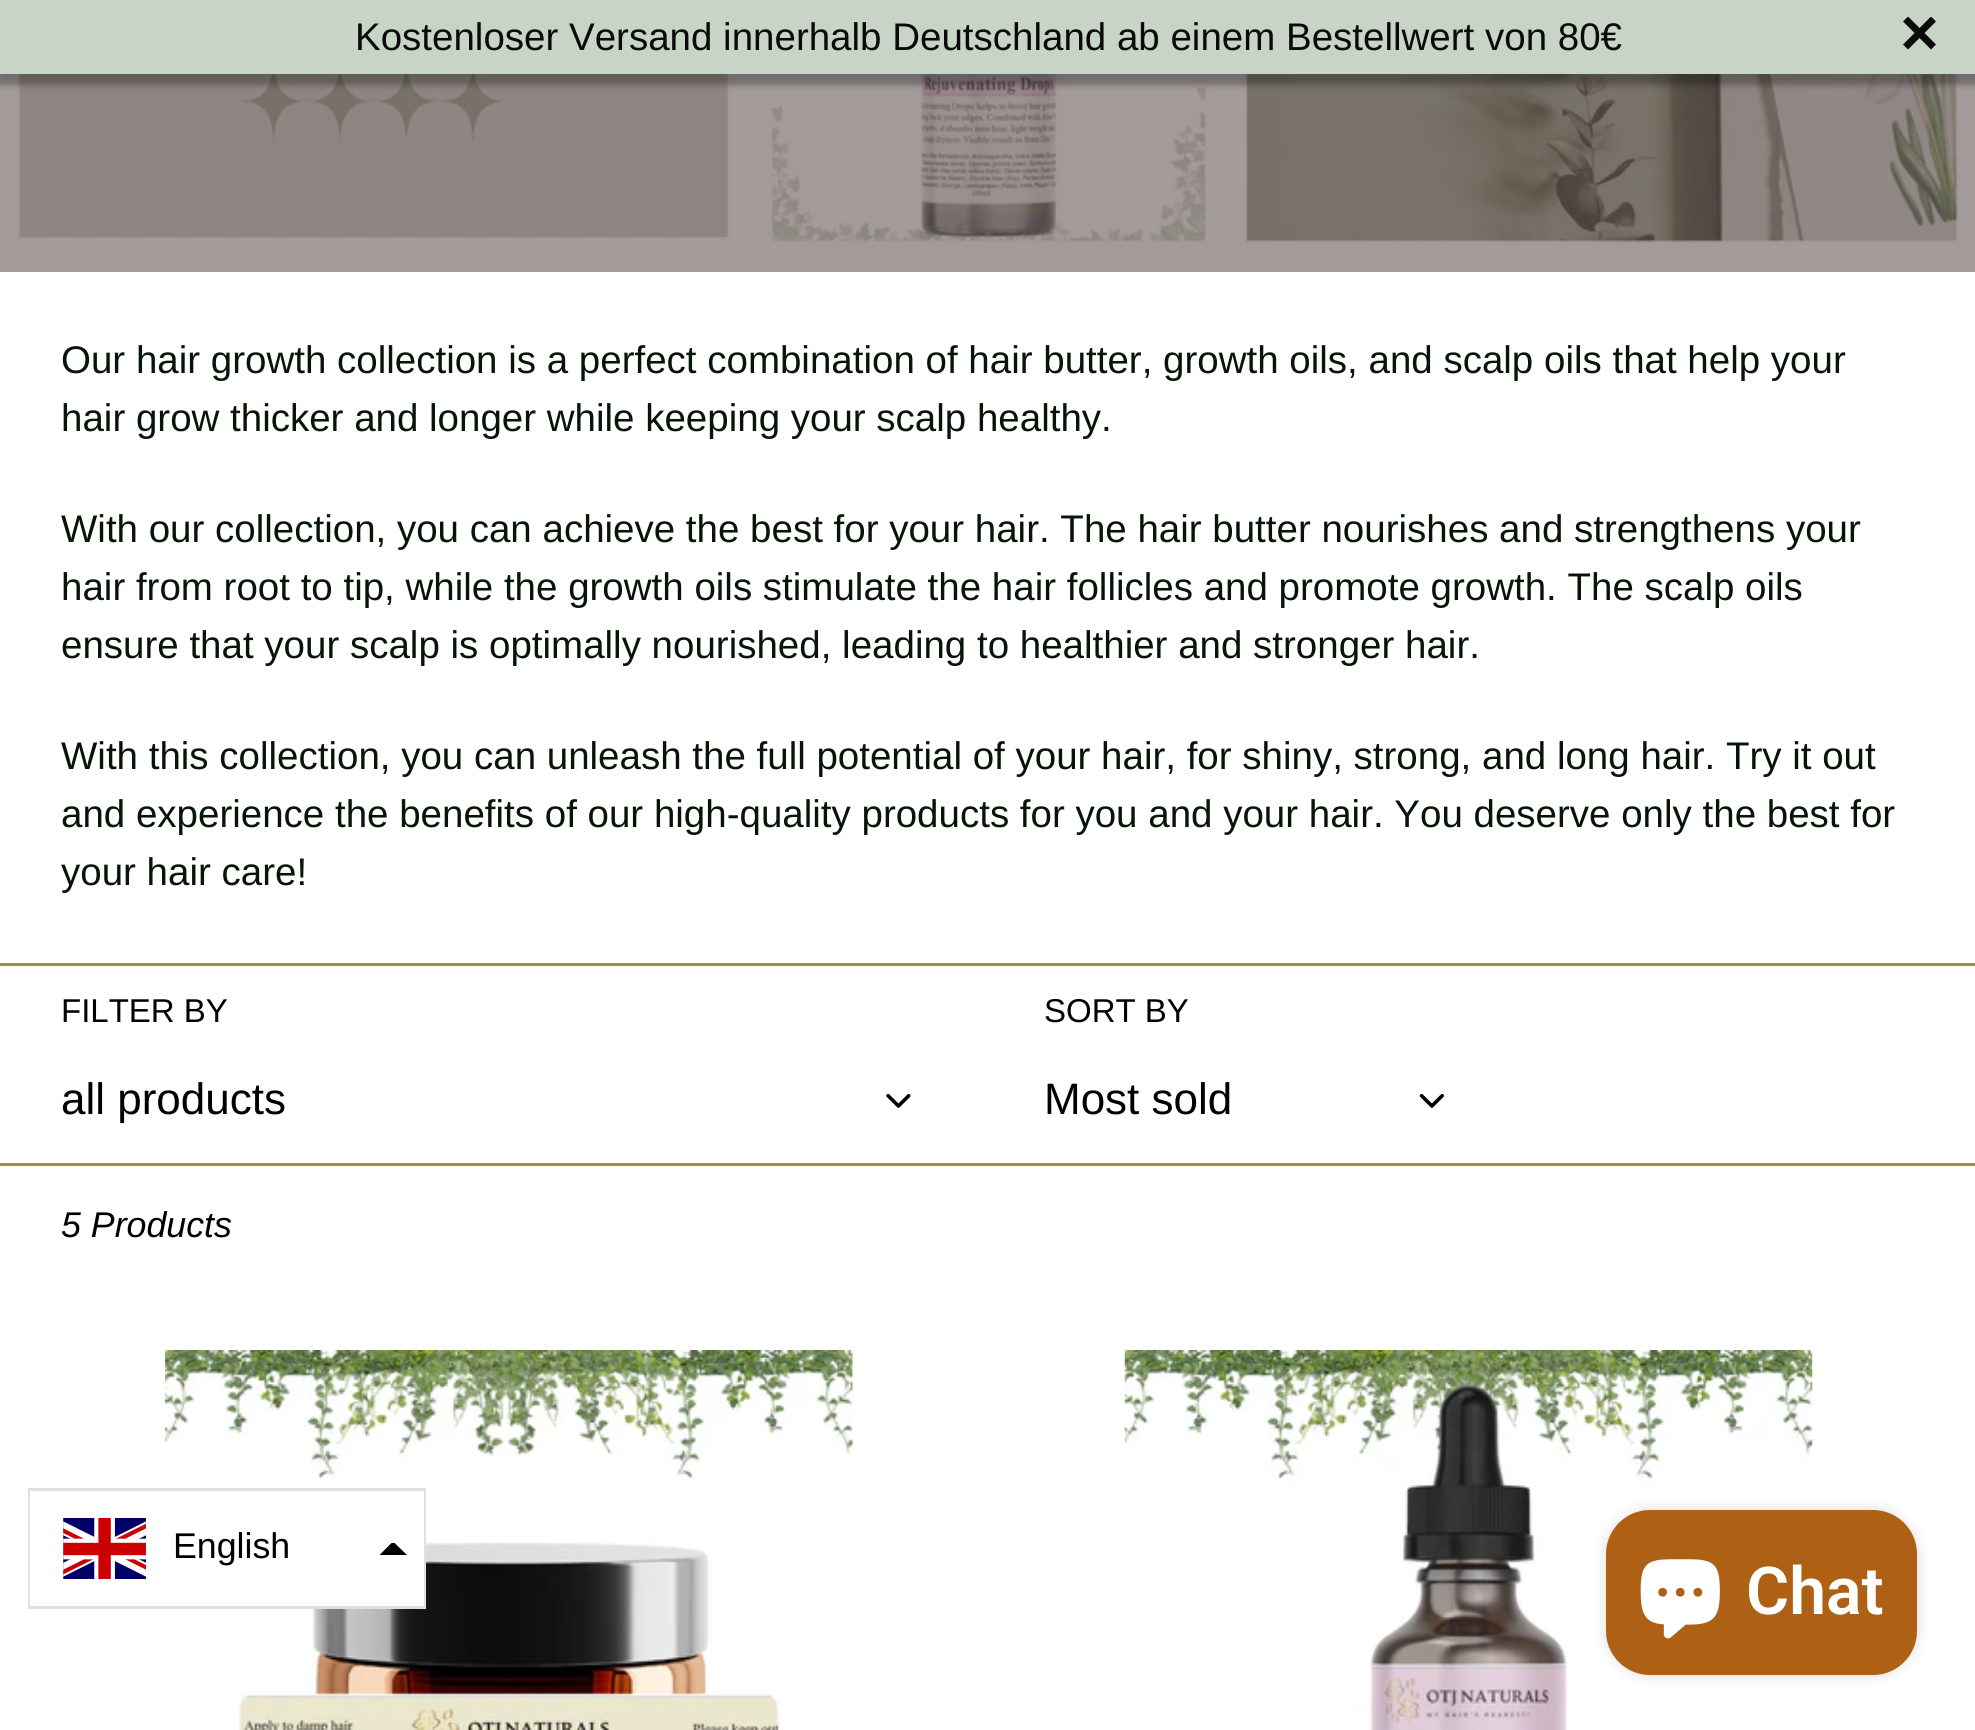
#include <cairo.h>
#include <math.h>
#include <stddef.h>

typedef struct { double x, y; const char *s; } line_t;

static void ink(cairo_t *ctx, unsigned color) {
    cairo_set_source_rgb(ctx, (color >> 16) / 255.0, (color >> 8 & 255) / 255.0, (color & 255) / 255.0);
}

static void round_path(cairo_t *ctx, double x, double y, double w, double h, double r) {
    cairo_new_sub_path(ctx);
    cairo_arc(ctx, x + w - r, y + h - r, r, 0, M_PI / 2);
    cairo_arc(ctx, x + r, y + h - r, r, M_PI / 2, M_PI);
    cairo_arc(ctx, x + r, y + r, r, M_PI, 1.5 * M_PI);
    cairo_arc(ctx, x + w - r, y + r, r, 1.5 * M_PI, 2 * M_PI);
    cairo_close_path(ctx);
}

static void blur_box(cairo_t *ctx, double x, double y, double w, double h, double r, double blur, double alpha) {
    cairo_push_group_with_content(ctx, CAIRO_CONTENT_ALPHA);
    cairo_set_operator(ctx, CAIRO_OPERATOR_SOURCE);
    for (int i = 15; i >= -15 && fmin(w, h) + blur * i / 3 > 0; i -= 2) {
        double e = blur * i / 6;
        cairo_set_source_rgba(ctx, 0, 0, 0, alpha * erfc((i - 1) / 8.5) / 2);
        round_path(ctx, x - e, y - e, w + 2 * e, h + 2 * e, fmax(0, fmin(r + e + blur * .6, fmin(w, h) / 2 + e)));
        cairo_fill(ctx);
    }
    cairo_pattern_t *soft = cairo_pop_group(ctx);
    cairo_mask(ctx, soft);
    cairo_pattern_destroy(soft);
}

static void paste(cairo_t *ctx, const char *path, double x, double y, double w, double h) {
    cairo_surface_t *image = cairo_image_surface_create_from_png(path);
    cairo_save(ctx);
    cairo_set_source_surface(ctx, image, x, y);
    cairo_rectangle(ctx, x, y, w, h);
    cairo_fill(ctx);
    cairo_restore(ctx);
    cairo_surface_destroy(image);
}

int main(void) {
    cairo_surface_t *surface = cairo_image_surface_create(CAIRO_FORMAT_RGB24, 1975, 1730);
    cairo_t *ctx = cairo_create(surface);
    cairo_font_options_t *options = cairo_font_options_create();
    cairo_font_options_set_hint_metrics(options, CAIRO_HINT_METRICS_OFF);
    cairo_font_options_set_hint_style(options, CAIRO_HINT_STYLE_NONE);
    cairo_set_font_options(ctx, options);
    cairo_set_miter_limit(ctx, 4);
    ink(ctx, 0xFFFFFF);
    cairo_paint(ctx);
    ink(ctx, 0xA49B9B);
    cairo_rectangle(ctx, 0, 74, 1975, 198);
    cairo_fill(ctx);
    paste(ctx, "media/1.png", 18, 74, 1947, 173);
    ink(ctx, 0x000000);
    blur_box(ctx, -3, 6, 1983, 79, 0, 3, 0.3);
    ink(ctx, 0xC7D4C6);
    cairo_rectangle(ctx, 0, 0, 1975, 74);
    cairo_fill(ctx);
    cairo_select_font_face(ctx, "Liberation Sans", CAIRO_FONT_SLANT_NORMAL, CAIRO_FONT_WEIGHT_NORMAL);
    cairo_set_font_size(ctx, 38.5);
    ink(ctx, 0x0A0A0A);
    cairo_move_to(ctx, 355, 50);
    cairo_show_text(ctx, "Kostenloser Versand innerhalb Deutschland ab einem Bestellwert von 80€");
    cairo_save(ctx);
    cairo_rectangle(ctx, 1903, 17, 33, 33);
    cairo_clip(ctx);
    cairo_new_path(ctx);
    cairo_move_to(ctx, 1936, 21.5);
    cairo_line_to(ctx, 1931, 16.5);
    cairo_line_to(ctx, 1919.5, 28);
    cairo_line_to(ctx, 1908, 16.5);
    cairo_line_to(ctx, 1903, 21.5);
    cairo_line_to(ctx, 1914.5, 33);
    cairo_line_to(ctx, 1903, 44.5);
    cairo_line_to(ctx, 1908, 49.5);
    cairo_line_to(ctx, 1919.5, 38);
    cairo_line_to(ctx, 1931, 49.5);
    cairo_line_to(ctx, 1936, 44.5);
    cairo_line_to(ctx, 1924.5, 33);
    cairo_close_path(ctx);
    cairo_fill(ctx);
    cairo_restore(ctx);
    ink(ctx, 0x071507);
    {
        static const line_t items[] = {
            {61, 373, "Our hair growth collection is a perfect combination of hair butter, growth oils, and scalp oils that help your"},
            {61, 431, "hair grow thicker and longer while keeping your scalp healthy."},
            {61, 542, "With our collection, you can achieve the best for your hair. The hair butter nourishes and strengthens your"},
            {61, 600, "hair from root to tip, while the growth oils stimulate the hair follicles and promote growth. The scalp oils"},
            {61, 658, "ensure that your scalp is optimally nourished, leading to healthier and stronger hair."},
            {61, 769, "With this collection, you can unleash the full potential of your hair, for shiny, strong, and long hair. Try it out"},
            {61, 827, "and experience the benefits of our high-quality products for you and your hair. You deserve only the best for"},
            {61, 885, "your hair care!"},
        };
        for (size_t i = 0; i < sizeof items / sizeof *items; i++) {
            cairo_move_to(ctx, items[i].x, items[i].y);
            cairo_show_text(ctx, items[i].s);
        }
    }
    ink(ctx, 0x989732);
    cairo_rectangle(ctx, 0, 963, 1975, 3);
    cairo_fill(ctx);
    cairo_set_font_size(ctx, 33);
    ink(ctx, 0x000000);
    cairo_move_to(ctx, 61, 1022);
    cairo_show_text(ctx, "FILTER BY");
    cairo_set_font_size(ctx, 44);
    cairo_move_to(ctx, 61, 1114);
    cairo_show_text(ctx, "all products");
    paste(ctx, "media/2.png", 886, 1093, 25, 15);
    cairo_set_font_size(ctx, 33);
    cairo_move_to(ctx, 1044, 1022);
    cairo_show_text(ctx, "SORT BY");
    cairo_set_font_size(ctx, 44);
    cairo_move_to(ctx, 1044, 1114);
    cairo_show_text(ctx, "Most sold");
    paste(ctx, "media/3.png", 1419, 1093, 25, 15);
    ink(ctx, 0x989732);
    cairo_rectangle(ctx, 0, 1163, 1975, 3);
    cairo_fill(ctx);
    cairo_select_font_face(ctx, "Liberation Sans", CAIRO_FONT_SLANT_ITALIC, CAIRO_FONT_WEIGHT_NORMAL);
    cairo_set_font_size(ctx, 35.75);
    ink(ctx, 0x000000);
    cairo_move_to(ctx, 61, 1237);
    cairo_show_text(ctx, "5 Products");
    paste(ctx, "media/4.png", 165, 1350, 688, 380);
    paste(ctx, "media/5.png", 1124, 1350, 689, 380);
    cairo_rectangle(ctx, 29.5, 1489.5, 395, 118);
    ink(ctx, 0xE0E0E0);
    cairo_set_line_width(ctx, 3);
    cairo_stroke(ctx);
    ink(ctx, 0xFFFFFF);
    cairo_rectangle(ctx, 30, 1491, 394, 115);
    cairo_fill(ctx);
    paste(ctx, "media/6.png", 63, 1518, 83, 61);
    cairo_select_font_face(ctx, "Liberation Sans", CAIRO_FONT_SLANT_NORMAL, CAIRO_FONT_WEIGHT_NORMAL);
    ink(ctx, 0x000000);
    cairo_move_to(ctx, 173, 1558);
    cairo_show_text(ctx, "English");
    cairo_save(ctx);
    cairo_rectangle(ctx, 380, 1543, 27, 14);
    cairo_clip(ctx);
    cairo_set_fill_rule(ctx, CAIRO_FILL_RULE_EVEN_ODD);
    cairo_new_path(ctx);
    cairo_move_to(ctx, 379.5, 1555);
    cairo_line_to(ctx, 393, 1541.5);
    cairo_line_to(ctx, 407, 1555);
    cairo_close_path(ctx);
    cairo_fill(ctx);
    cairo_restore(ctx);
    ink(ctx, 0x000000);
    blur_box(ctx, 1606, 1510, 311, 165, 44, 7, 0.15);
    ink(ctx, 0xAE6014);
    round_path(ctx, 1606, 1510, 311, 165, 44);
    cairo_fill(ctx);
    paste(ctx, "media/7.png", 1640, 1559, 80, 80);
    cairo_select_font_face(ctx, "Roboto SemiBold", CAIRO_FONT_SLANT_NORMAL, CAIRO_FONT_WEIGHT_NORMAL);
    cairo_set_font_size(ctx, 66);
    ink(ctx, 0xFFFFFF);
    cairo_move_to(ctx, 1746, 1614);
    cairo_show_text(ctx, "Chat");
    cairo_surface_write_to_png(surface, "image.png");
    cairo_font_options_destroy(options);
    cairo_destroy(ctx);
    cairo_surface_destroy(surface);
    return 0;
}
